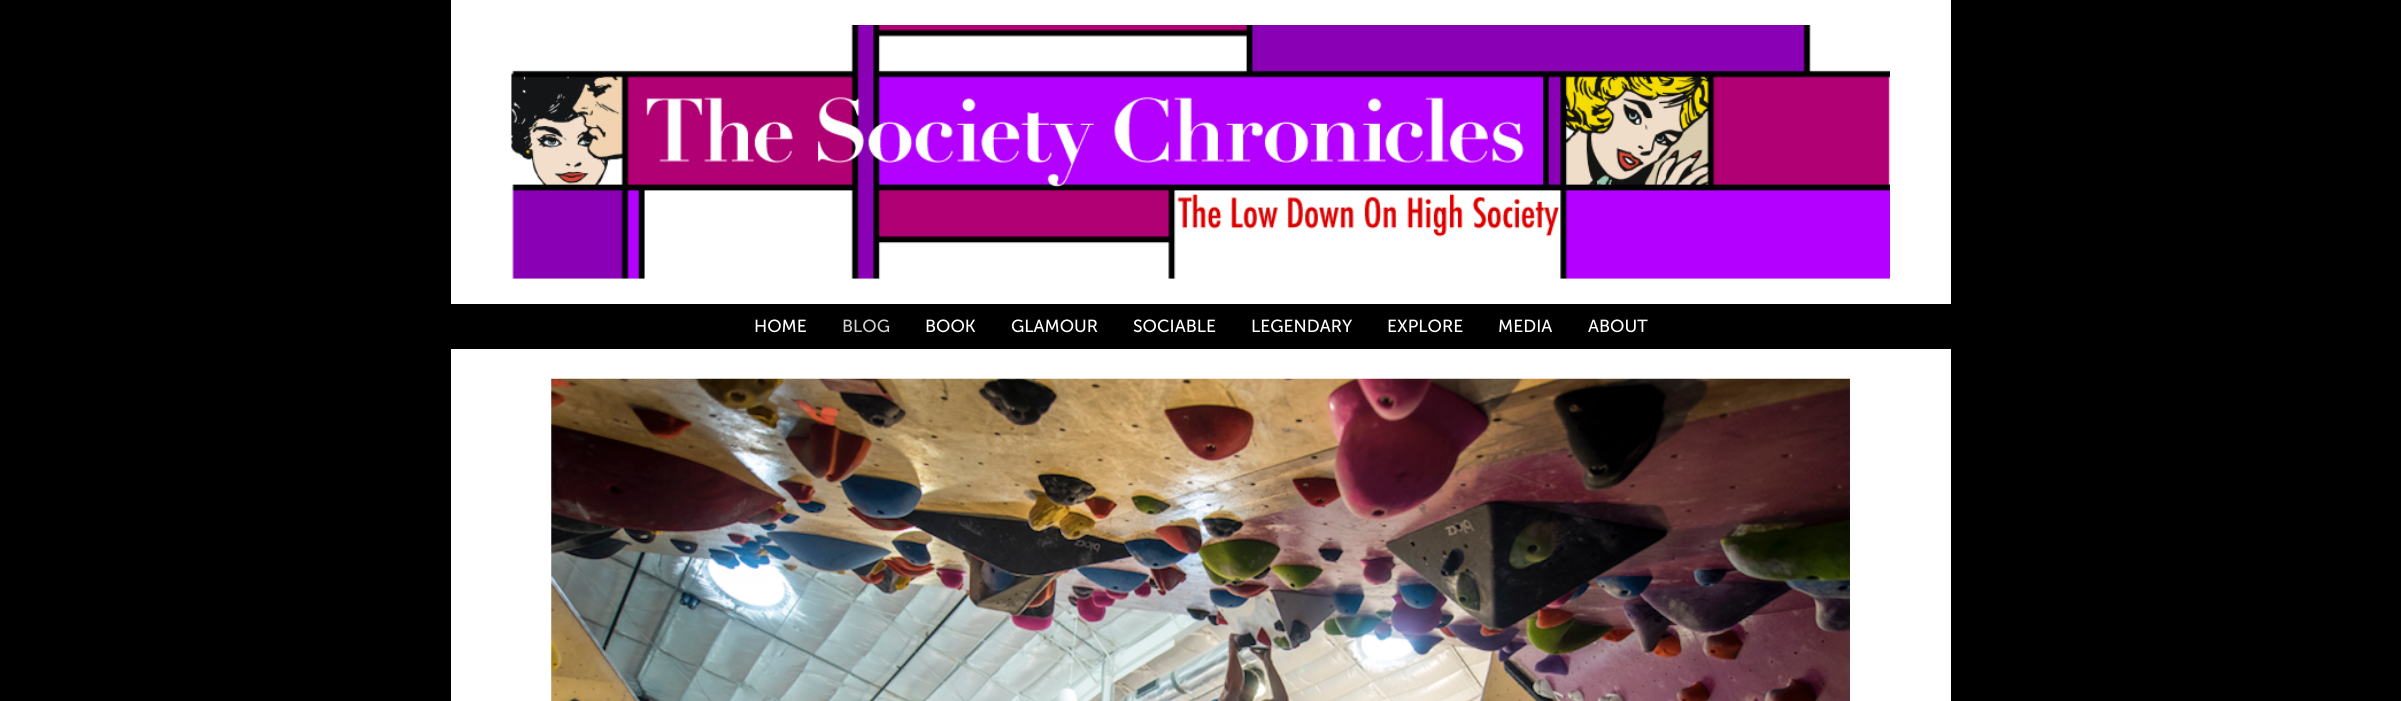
#include <cairo.h>
#include <math.h>
#include <stddef.h>

typedef struct { double x, y; const char *s; } line_t;

static void ink(cairo_t *ctx, unsigned color) {
    cairo_set_source_rgb(ctx, (color >> 16) / 255.0, (color >> 8 & 255) / 255.0, (color & 255) / 255.0);
}

static void paste(cairo_t *ctx, const char *path, double x, double y, double w, double h) {
    cairo_surface_t *image = cairo_image_surface_create_from_png(path);
    cairo_save(ctx);
    cairo_set_source_surface(ctx, image, x, y);
    cairo_rectangle(ctx, x, y, w, h);
    cairo_fill(ctx);
    cairo_restore(ctx);
    cairo_surface_destroy(image);
}

int main(void) {
    cairo_surface_t *surface = cairo_image_surface_create(CAIRO_FORMAT_RGB24, 2401, 701);
    cairo_t *ctx = cairo_create(surface);
    cairo_font_options_t *options = cairo_font_options_create();
    cairo_font_options_set_hint_metrics(options, CAIRO_HINT_METRICS_OFF);
    cairo_font_options_set_hint_style(options, CAIRO_HINT_STYLE_NONE);
    cairo_set_font_options(ctx, options);
    cairo_set_miter_limit(ctx, 4);
    ink(ctx, 0x000000);
    cairo_paint(ctx);
    ink(ctx, 0xFFFFFF);
    cairo_rectangle(ctx, 451, 0, 1500, 701);
    cairo_fill(ctx);
    paste(ctx, "media/1.png", 511, 25, 1379, 254);
    ink(ctx, 0x000000);
    cairo_rectangle(ctx, 451, 304, 1500, 45);
    cairo_fill(ctx);
    cairo_select_font_face(ctx, "Museo Sans", CAIRO_FONT_SLANT_NORMAL, CAIRO_FONT_WEIGHT_NORMAL);
    cairo_set_font_size(ctx, 17.5);
    ink(ctx, 0xFFFFFF);
    cairo_move_to(ctx, 754, 332);
    cairo_show_text(ctx, "HOME");
    ink(ctx, 0xD1D1D1);
    cairo_move_to(ctx, 842, 332);
    cairo_show_text(ctx, "BLOG");
    ink(ctx, 0xFFFFFF);
    {
        static const line_t items[] = {
            {925, 332, "BOOK"},
            {1011, 332, "GLAMOUR"},
            {1133, 332, "SOCIABLE"},
            {1251, 332, "LEGENDARY"},
            {1387, 332, "EXPLORE"},
            {1498, 332, "MEDIA"},
            {1588, 332, "ABOUT"},
        };
        for (size_t i = 0; i < sizeof items / sizeof *items; i++) {
            cairo_move_to(ctx, items[i].x, items[i].y);
            cairo_show_text(ctx, items[i].s);
        }
    }
    paste(ctx, "media/2.png", 551, 378, 1299, 323);
    cairo_surface_write_to_png(surface, "image.png");
    cairo_font_options_destroy(options);
    cairo_destroy(ctx);
    cairo_surface_destroy(surface);
    return 0;
}
